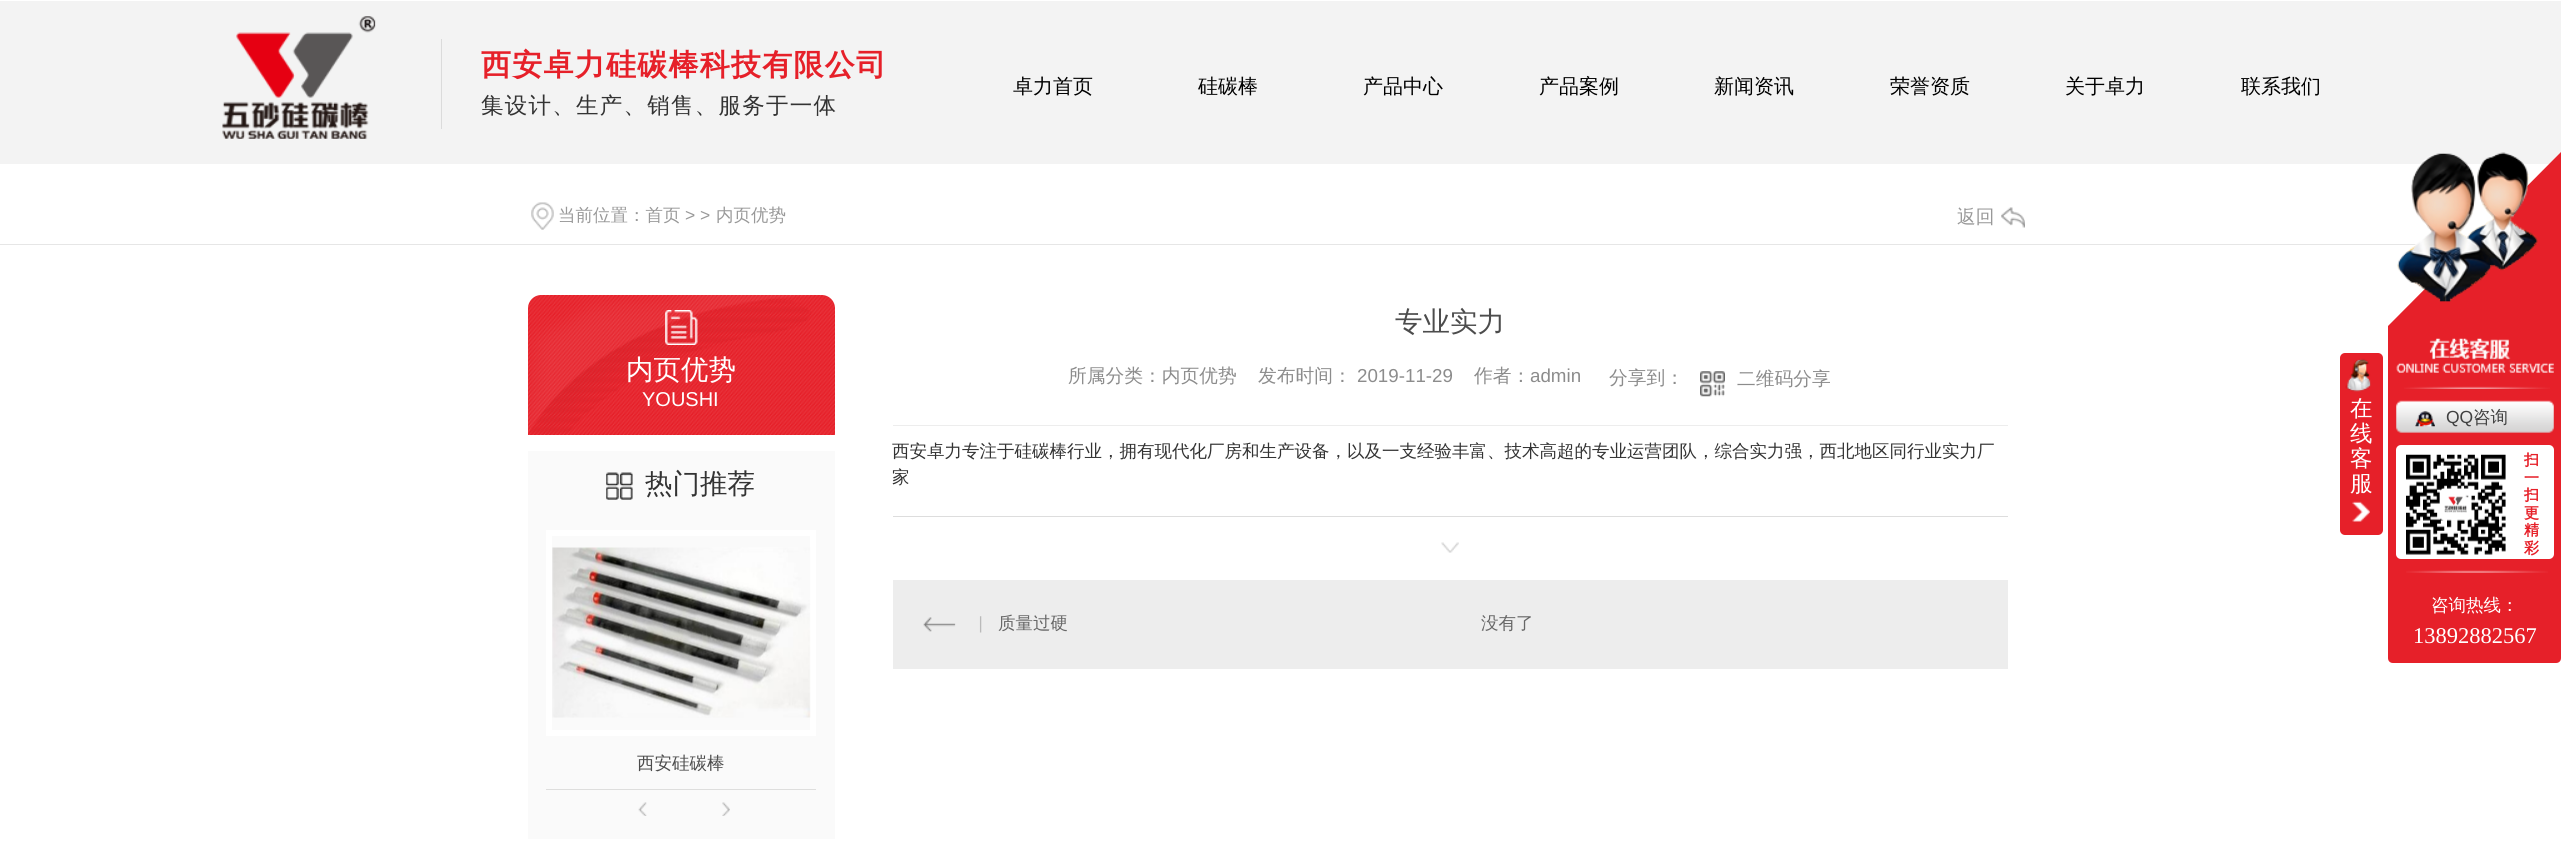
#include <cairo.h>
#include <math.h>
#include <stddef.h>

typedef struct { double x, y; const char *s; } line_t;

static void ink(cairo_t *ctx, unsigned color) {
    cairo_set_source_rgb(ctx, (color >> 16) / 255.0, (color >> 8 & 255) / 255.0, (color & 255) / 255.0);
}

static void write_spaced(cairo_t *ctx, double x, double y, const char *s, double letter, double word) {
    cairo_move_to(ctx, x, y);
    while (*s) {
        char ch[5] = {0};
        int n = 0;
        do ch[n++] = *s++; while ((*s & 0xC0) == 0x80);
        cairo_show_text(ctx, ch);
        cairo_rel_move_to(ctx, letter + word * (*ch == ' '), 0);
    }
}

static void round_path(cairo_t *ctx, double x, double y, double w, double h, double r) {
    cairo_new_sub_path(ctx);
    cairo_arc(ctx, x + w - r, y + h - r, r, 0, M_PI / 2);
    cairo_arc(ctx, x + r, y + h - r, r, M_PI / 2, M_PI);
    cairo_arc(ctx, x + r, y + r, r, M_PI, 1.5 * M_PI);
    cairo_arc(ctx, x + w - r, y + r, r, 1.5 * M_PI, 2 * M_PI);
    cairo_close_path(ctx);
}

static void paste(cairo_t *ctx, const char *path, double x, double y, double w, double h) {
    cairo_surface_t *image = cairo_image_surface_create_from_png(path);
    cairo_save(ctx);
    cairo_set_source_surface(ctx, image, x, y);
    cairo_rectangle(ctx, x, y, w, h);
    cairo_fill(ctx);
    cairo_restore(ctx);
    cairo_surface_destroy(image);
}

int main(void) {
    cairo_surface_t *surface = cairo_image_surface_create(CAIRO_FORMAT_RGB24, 2561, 847);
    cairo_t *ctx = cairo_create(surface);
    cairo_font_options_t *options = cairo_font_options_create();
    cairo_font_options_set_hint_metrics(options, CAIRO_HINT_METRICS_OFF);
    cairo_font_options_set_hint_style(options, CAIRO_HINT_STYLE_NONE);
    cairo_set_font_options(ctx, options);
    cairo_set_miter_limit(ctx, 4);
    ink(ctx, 0xFFFFFF);
    cairo_paint(ctx);
    ink(ctx, 0xF3F3F3);
    cairo_rectangle(ctx, 0, 1, 2561, 163);
    cairo_fill(ctx);
    paste(ctx, "media/1.png", 222, 16, 154, 123);
    ink(ctx, 0xDBDBDB);
    cairo_rectangle(ctx, 441, 39, 1, 90);
    cairo_fill(ctx);
    cairo_select_font_face(ctx, "WenQuanYi Zen Hei", CAIRO_FONT_SLANT_NORMAL, CAIRO_FONT_WEIGHT_BOLD);
    cairo_set_font_size(ctx, 30);
    ink(ctx, 0xE62029);
    write_spaced(ctx, 481, 75, "西安卓力硅碳棒科技有限公司", 1.25, 0);
    cairo_select_font_face(ctx, "WenQuanYi Zen Hei Medium", CAIRO_FONT_SLANT_NORMAL, CAIRO_FONT_WEIGHT_NORMAL);
    cairo_set_font_size(ctx, 22.5);
    ink(ctx, 0x333333);
    write_spaced(ctx, 481, 113, "集设计、生产、销售、服务于一体", 1.25, 0);
    cairo_set_font_size(ctx, 20);
    ink(ctx, 0x000000);
    {
        static const line_t items[] = {
            {1013, 93, "卓力首页"},
            {1198, 93, "硅碳棒"},
            {1363, 93, "产品中心"},
            {1539, 93, "产品案例"},
            {1714, 93, "新闻资讯"},
            {1890, 93, "荣誉资质"},
            {2065, 93, "关于卓力"},
            {2241, 93, "联系我们"},
        };
        for (size_t i = 0; i < sizeof items / sizeof *items; i++) {
            cairo_move_to(ctx, items[i].x, items[i].y);
            cairo_show_text(ctx, items[i].s);
        }
    }
    ink(ctx, 0xE6E6E6);
    cairo_rectangle(ctx, 0, 244, 2417, 1);
    cairo_fill(ctx);
    paste(ctx, "media/2.png", 531, 202, 23, 28);
    cairo_set_font_size(ctx, 17.5);
    ink(ctx, 0x999999);
    cairo_move_to(ctx, 558, 221);
    cairo_show_text(ctx, "当前位置：首页");
    cairo_select_font_face(ctx, "Liberation Sans", CAIRO_FONT_SLANT_NORMAL, CAIRO_FONT_WEIGHT_NORMAL);
    cairo_move_to(ctx, 685, 221);
    cairo_show_text(ctx, "> >");
    cairo_select_font_face(ctx, "WenQuanYi Zen Hei Medium", CAIRO_FONT_SLANT_NORMAL, CAIRO_FONT_WEIGHT_NORMAL);
    cairo_move_to(ctx, 716, 221);
    cairo_show_text(ctx, "内页优势");
    cairo_set_font_size(ctx, 18.75);
    cairo_move_to(ctx, 1957, 223);
    cairo_show_text(ctx, "返回");
    paste(ctx, "media/3.png", 2001, 207, 24, 21);
    ink(ctx, 0xE62029);
    cairo_new_path(ctx);
    cairo_move_to(ctx, 541, 295);
    cairo_line_to(ctx, 822, 295);
    cairo_curve_to(ctx, 829, 295, 835, 301, 835, 308);
    cairo_line_to(ctx, 835, 435);
    cairo_line_to(ctx, 528, 435);
    cairo_line_to(ctx, 528, 308);
    cairo_curve_to(ctx, 528, 301, 534, 295, 541, 295);
    cairo_close_path(ctx);
    cairo_fill(ctx);
    paste(ctx, "media/4.png", 528, 295, 307, 140);
    paste(ctx, "media/5.png", 665, 310, 33, 35);
    cairo_set_font_size(ctx, 27.5);
    ink(ctx, 0xFFFFFF);
    cairo_move_to(ctx, 626, 379);
    cairo_show_text(ctx, "内页优势");
    cairo_select_font_face(ctx, "Liberation Sans", CAIRO_FONT_SLANT_NORMAL, CAIRO_FONT_WEIGHT_NORMAL);
    cairo_set_font_size(ctx, 20);
    cairo_move_to(ctx, 642, 406);
    cairo_show_text(ctx, "YOUSHI");
    ink(ctx, 0xFAFAFA);
    cairo_rectangle(ctx, 528, 451, 307, 388);
    cairo_fill(ctx);
    paste(ctx, "media/6.png", 606, 472, 27, 28);
    cairo_select_font_face(ctx, "WenQuanYi Zen Hei Medium", CAIRO_FONT_SLANT_NORMAL, CAIRO_FONT_WEIGHT_NORMAL);
    cairo_set_font_size(ctx, 27.5);
    ink(ctx, 0x333333);
    cairo_move_to(ctx, 645, 493);
    cairo_show_text(ctx, "热门推荐");
    cairo_rectangle(ctx, 549, 533, 264, 200);
    ink(ctx, 0xFFFFFF);
    cairo_set_line_width(ctx, 6);
    cairo_stroke(ctx);
    paste(ctx, "media/7.png", 552, 547, 259, 171);
    ink(ctx, 0xDEDEDD);
    cairo_rectangle(ctx, 546, 789, 270, 1);
    cairo_fill(ctx);
    cairo_set_font_size(ctx, 17.5);
    ink(ctx, 0x4C4C4C);
    cairo_move_to(ctx, 637, 769);
    cairo_show_text(ctx, "西安硅碳棒");
    paste(ctx, "media/8.png", 638, 802, 9, 14);
    paste(ctx, "media/9.png", 722, 802, 8, 14);
    cairo_set_font_size(ctx, 27.5);
    cairo_move_to(ctx, 1395, 331);
    cairo_show_text(ctx, "专业实力");
    cairo_set_font_size(ctx, 18.75);
    ink(ctx, 0x8C8C8C);
    cairo_move_to(ctx, 1068, 382);
    cairo_show_text(ctx, "所属分类：内页优势");
    cairo_move_to(ctx, 1258, 382);
    cairo_show_text(ctx, "发布时间：");
    cairo_select_font_face(ctx, "Liberation Sans", CAIRO_FONT_SLANT_NORMAL, CAIRO_FONT_WEIGHT_NORMAL);
    cairo_move_to(ctx, 1357, 382);
    cairo_show_text(ctx, "2019-11-29");
    cairo_select_font_face(ctx, "WenQuanYi Zen Hei Medium", CAIRO_FONT_SLANT_NORMAL, CAIRO_FONT_WEIGHT_NORMAL);
    cairo_move_to(ctx, 1474, 382);
    cairo_show_text(ctx, "作者：");
    cairo_select_font_face(ctx, "Liberation Sans", CAIRO_FONT_SLANT_NORMAL, CAIRO_FONT_WEIGHT_NORMAL);
    cairo_move_to(ctx, 1530, 382);
    cairo_show_text(ctx, "admin");
    cairo_select_font_face(ctx, "WenQuanYi Zen Hei Medium", CAIRO_FONT_SLANT_NORMAL, CAIRO_FONT_WEIGHT_NORMAL);
    cairo_move_to(ctx, 1609, 384);
    cairo_show_text(ctx, "分享到：");
    paste(ctx, "media/10.png", 1700, 371, 25, 26);
    cairo_move_to(ctx, 1737, 385);
    cairo_show_text(ctx, "二维码分享");
    ink(ctx, 0xEDEDED);
    cairo_rectangle(ctx, 893, 425, 1115, 1);
    cairo_fill(ctx);
    ink(ctx, 0xDDDDDD);
    cairo_rectangle(ctx, 893, 516, 1115, 1);
    cairo_fill(ctx);
    cairo_set_font_size(ctx, 17.5);
    ink(ctx, 0x333333);
    cairo_move_to(ctx, 892, 457);
    cairo_show_text(ctx, "西安卓力专注于硅碳棒行业，拥有现代化厂房和生产设备，以及一支经验丰富、技术高超的专业运营团队，综合实力强，西北地区同行业实力厂");
    cairo_move_to(ctx, 892, 483);
    cairo_show_text(ctx, "家");
    paste(ctx, "media/11.png", 1441, 542, 18, 11);
    ink(ctx, 0xEDEDED);
    cairo_rectangle(ctx, 893, 580, 1115, 89);
    cairo_fill(ctx);
    paste(ctx, "media/12.png", 923, 616, 59, 17);
    ink(ctx, 0x666666);
    cairo_move_to(ctx, 998, 629);
    cairo_show_text(ctx, "质量过硬");
    cairo_move_to(ctx, 1481, 629);
    cairo_show_text(ctx, "没有了");
    ink(ctx, 0xE62029);
    round_path(ctx, 2340, 353, 43, 182, 5);
    cairo_fill(ctx);
    paste(ctx, "media/13.png", 2352, 501, 18, 21);
    paste(ctx, "media/14.png", 2345, 358, 26, 34);
    cairo_set_font_size(ctx, 22.5);
    ink(ctx, 0xFFFFFF);
    {
        static const line_t items[] = {
            {2350, 416, "在"},
            {2350, 441, "线"},
            {2350, 466, "客"},
            {2350, 491, "服"},
        };
        for (size_t i = 0; i < sizeof items / sizeof *items; i++) {
            cairo_move_to(ctx, items[i].x, items[i].y);
            cairo_show_text(ctx, items[i].s);
        }
    }
    ink(ctx, 0xE62029);
    cairo_new_path(ctx);
    cairo_move_to(ctx, 2561, 152);
    cairo_line_to(ctx, 2388, 326);
    cairo_line_to(ctx, 2561, 326);
    cairo_close_path(ctx);
    cairo_fill(ctx);
    paste(ctx, "media/15.png", 2397, 152, 141, 150);
    cairo_new_path(ctx);
    cairo_move_to(ctx, 2388, 326);
    cairo_line_to(ctx, 2561, 326);
    cairo_line_to(ctx, 2561, 658);
    cairo_curve_to(ctx, 2561, 661, 2559, 663, 2556, 663);
    cairo_line_to(ctx, 2393, 663);
    cairo_curve_to(ctx, 2390, 663, 2388, 661, 2388, 658);
    cairo_close_path(ctx);
    cairo_fill(ctx);
    paste(ctx, "media/16.png", 2396, 338, 158, 35);
    paste(ctx, "media/17.png", 2404, 386, 146, 3);
    paste(ctx, "media/18.png", 2396, 400, 158, 33);
    paste(ctx, "media/19.png", 2415, 411, 20, 16);
    cairo_select_font_face(ctx, "Liberation Sans", CAIRO_FONT_SLANT_NORMAL, CAIRO_FONT_WEIGHT_NORMAL);
    cairo_set_font_size(ctx, 17.5);
    ink(ctx, 0x404040);
    cairo_move_to(ctx, 2446, 423);
    cairo_show_text(ctx, "QQ");
    cairo_select_font_face(ctx, "WenQuanYi Zen Hei Medium", CAIRO_FONT_SLANT_NORMAL, CAIRO_FONT_WEIGHT_NORMAL);
    cairo_move_to(ctx, 2473, 423);
    cairo_show_text(ctx, "咨询");
    ink(ctx, 0xFFFFFF);
    round_path(ctx, 2396, 445, 158, 114, 5);
    cairo_fill(ctx);
    paste(ctx, "media/20.png", 2406, 454, 100, 101);
    cairo_select_font_face(ctx, "WenQuanYi Zen Hei", CAIRO_FONT_SLANT_NORMAL, CAIRO_FONT_WEIGHT_BOLD);
    cairo_set_font_size(ctx, 15);
    ink(ctx, 0xE62029);
    {
        static const line_t items[] = {
            {2524, 465, "扫"},
            {2524, 483, "一"},
            {2524, 500, "扫"},
            {2524, 518, "更"},
            {2524, 535, "精"},
            {2524, 553, "彩"},
        };
        for (size_t i = 0; i < sizeof items / sizeof *items; i++) {
            cairo_move_to(ctx, items[i].x, items[i].y);
            cairo_show_text(ctx, items[i].s);
        }
    }
    paste(ctx, "media/21.png", 2406, 570, 142, 3);
    cairo_select_font_face(ctx, "WenQuanYi Zen Hei Medium", CAIRO_FONT_SLANT_NORMAL, CAIRO_FONT_WEIGHT_NORMAL);
    cairo_set_font_size(ctx, 17.5);
    ink(ctx, 0xFFFFFF);
    cairo_move_to(ctx, 2431, 611);
    cairo_show_text(ctx, "咨询热线：");
    cairo_select_font_face(ctx, "Liberation Serif", CAIRO_FONT_SLANT_NORMAL, CAIRO_FONT_WEIGHT_NORMAL);
    cairo_set_font_size(ctx, 22.5);
    cairo_move_to(ctx, 2413, 643);
    cairo_show_text(ctx, "13892882567");
    cairo_surface_write_to_png(surface, "image.png");
    cairo_font_options_destroy(options);
    cairo_destroy(ctx);
    cairo_surface_destroy(surface);
    return 0;
}
